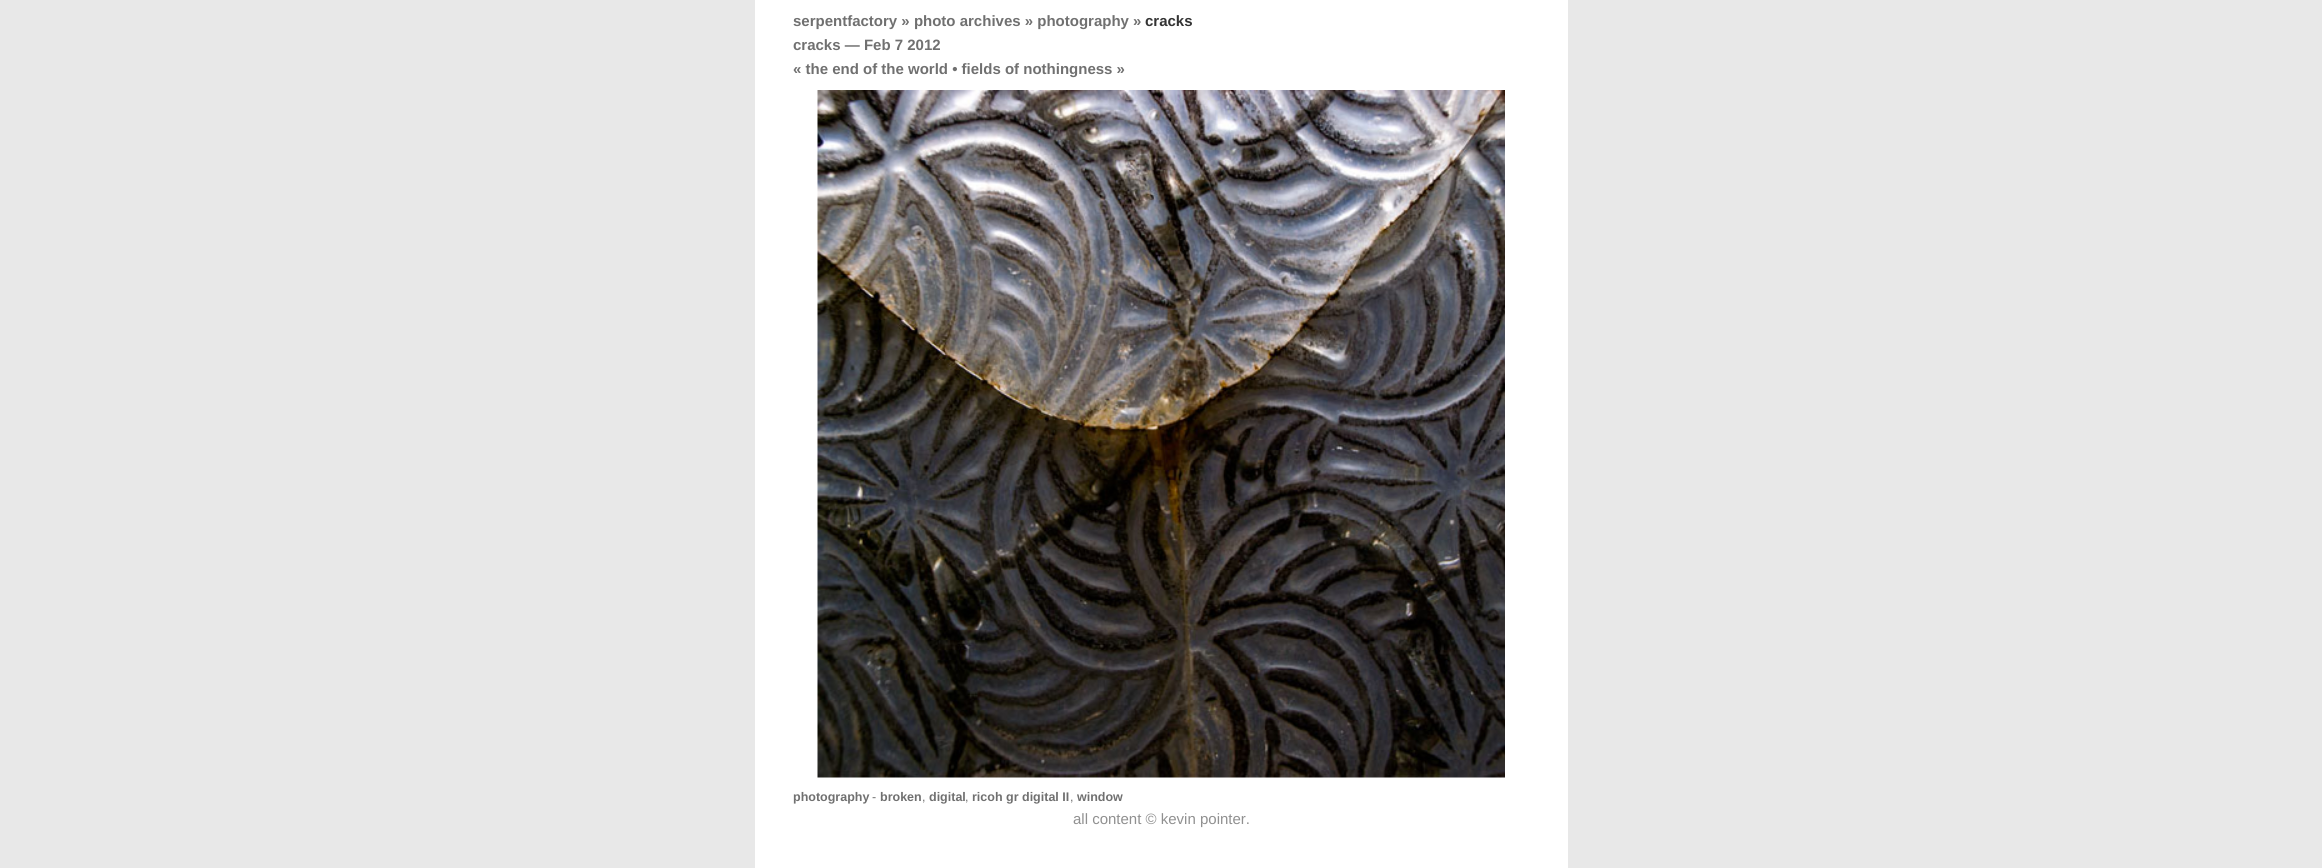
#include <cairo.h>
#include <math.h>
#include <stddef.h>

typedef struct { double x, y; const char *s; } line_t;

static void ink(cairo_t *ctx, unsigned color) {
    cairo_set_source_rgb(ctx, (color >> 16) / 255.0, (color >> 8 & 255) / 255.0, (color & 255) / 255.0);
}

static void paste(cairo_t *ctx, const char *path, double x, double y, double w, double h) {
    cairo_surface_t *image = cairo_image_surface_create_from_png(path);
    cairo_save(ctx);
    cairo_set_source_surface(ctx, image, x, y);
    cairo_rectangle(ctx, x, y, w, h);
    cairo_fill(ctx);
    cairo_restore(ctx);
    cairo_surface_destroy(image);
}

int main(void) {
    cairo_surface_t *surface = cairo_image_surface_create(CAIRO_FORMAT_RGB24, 2322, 868);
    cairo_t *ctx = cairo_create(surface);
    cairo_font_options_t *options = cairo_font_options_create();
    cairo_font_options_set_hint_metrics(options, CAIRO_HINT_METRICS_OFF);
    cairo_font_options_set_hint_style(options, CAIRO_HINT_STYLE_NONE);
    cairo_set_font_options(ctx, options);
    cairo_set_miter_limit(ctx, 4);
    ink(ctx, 0xE8E8E8);
    cairo_paint(ctx);
    ink(ctx, 0xFFFFFF);
    cairo_rectangle(ctx, 755, 0, 813, 868);
    cairo_fill(ctx);
    cairo_select_font_face(ctx, "Liberation Sans", CAIRO_FONT_SLANT_NORMAL, CAIRO_FONT_WEIGHT_BOLD);
    cairo_set_font_size(ctx, 15);
    ink(ctx, 0x707070);
    cairo_move_to(ctx, 793, 26);
    cairo_show_text(ctx, "serpentfactory » photo archives » photography »");
    ink(ctx, 0x333333);
    cairo_move_to(ctx, 1145, 26);
    cairo_show_text(ctx, "cracks");
    ink(ctx, 0x707070);
    cairo_move_to(ctx, 793, 50);
    cairo_show_text(ctx, "cracks — Feb 7 2012");
    cairo_move_to(ctx, 793, 74);
    cairo_show_text(ctx, "« the end of the world • fields of nothingness »");
    paste(ctx, "media/1.png", 817, 90, 688, 688);
    cairo_set_font_size(ctx, 12.5);
    cairo_move_to(ctx, 793, 801);
    cairo_show_text(ctx, "photography");
    cairo_select_font_face(ctx, "Liberation Sans", CAIRO_FONT_SLANT_NORMAL, CAIRO_FONT_WEIGHT_NORMAL);
    cairo_move_to(ctx, 872, 801);
    cairo_show_text(ctx, "-");
    cairo_select_font_face(ctx, "Liberation Sans", CAIRO_FONT_SLANT_NORMAL, CAIRO_FONT_WEIGHT_BOLD);
    {
        static const line_t items[] = {
            {880, 801, "broken"},
            {929, 801, "digital"},
            {972, 801, "ricoh gr digital II"},
            {1077, 801, "window"},
        };
        for (size_t i = 0; i < sizeof items / sizeof *items; i++) {
            cairo_move_to(ctx, items[i].x, items[i].y);
            cairo_show_text(ctx, items[i].s);
        }
    }
    cairo_select_font_face(ctx, "Liberation Sans", CAIRO_FONT_SLANT_NORMAL, CAIRO_FONT_WEIGHT_NORMAL);
    {
        static const line_t items[] = {
            {922, 801, ","},
            {965, 801, ","},
            {1070, 801, ","},
        };
        for (size_t i = 0; i < sizeof items / sizeof *items; i++) {
            cairo_move_to(ctx, items[i].x, items[i].y);
            cairo_show_text(ctx, items[i].s);
        }
    }
    cairo_set_font_size(ctx, 15);
    ink(ctx, 0x909090);
    cairo_move_to(ctx, 1073, 824);
    cairo_show_text(ctx, "all content © kevin pointer.");
    cairo_surface_write_to_png(surface, "image.png");
    cairo_font_options_destroy(options);
    cairo_destroy(ctx);
    cairo_surface_destroy(surface);
    return 0;
}
